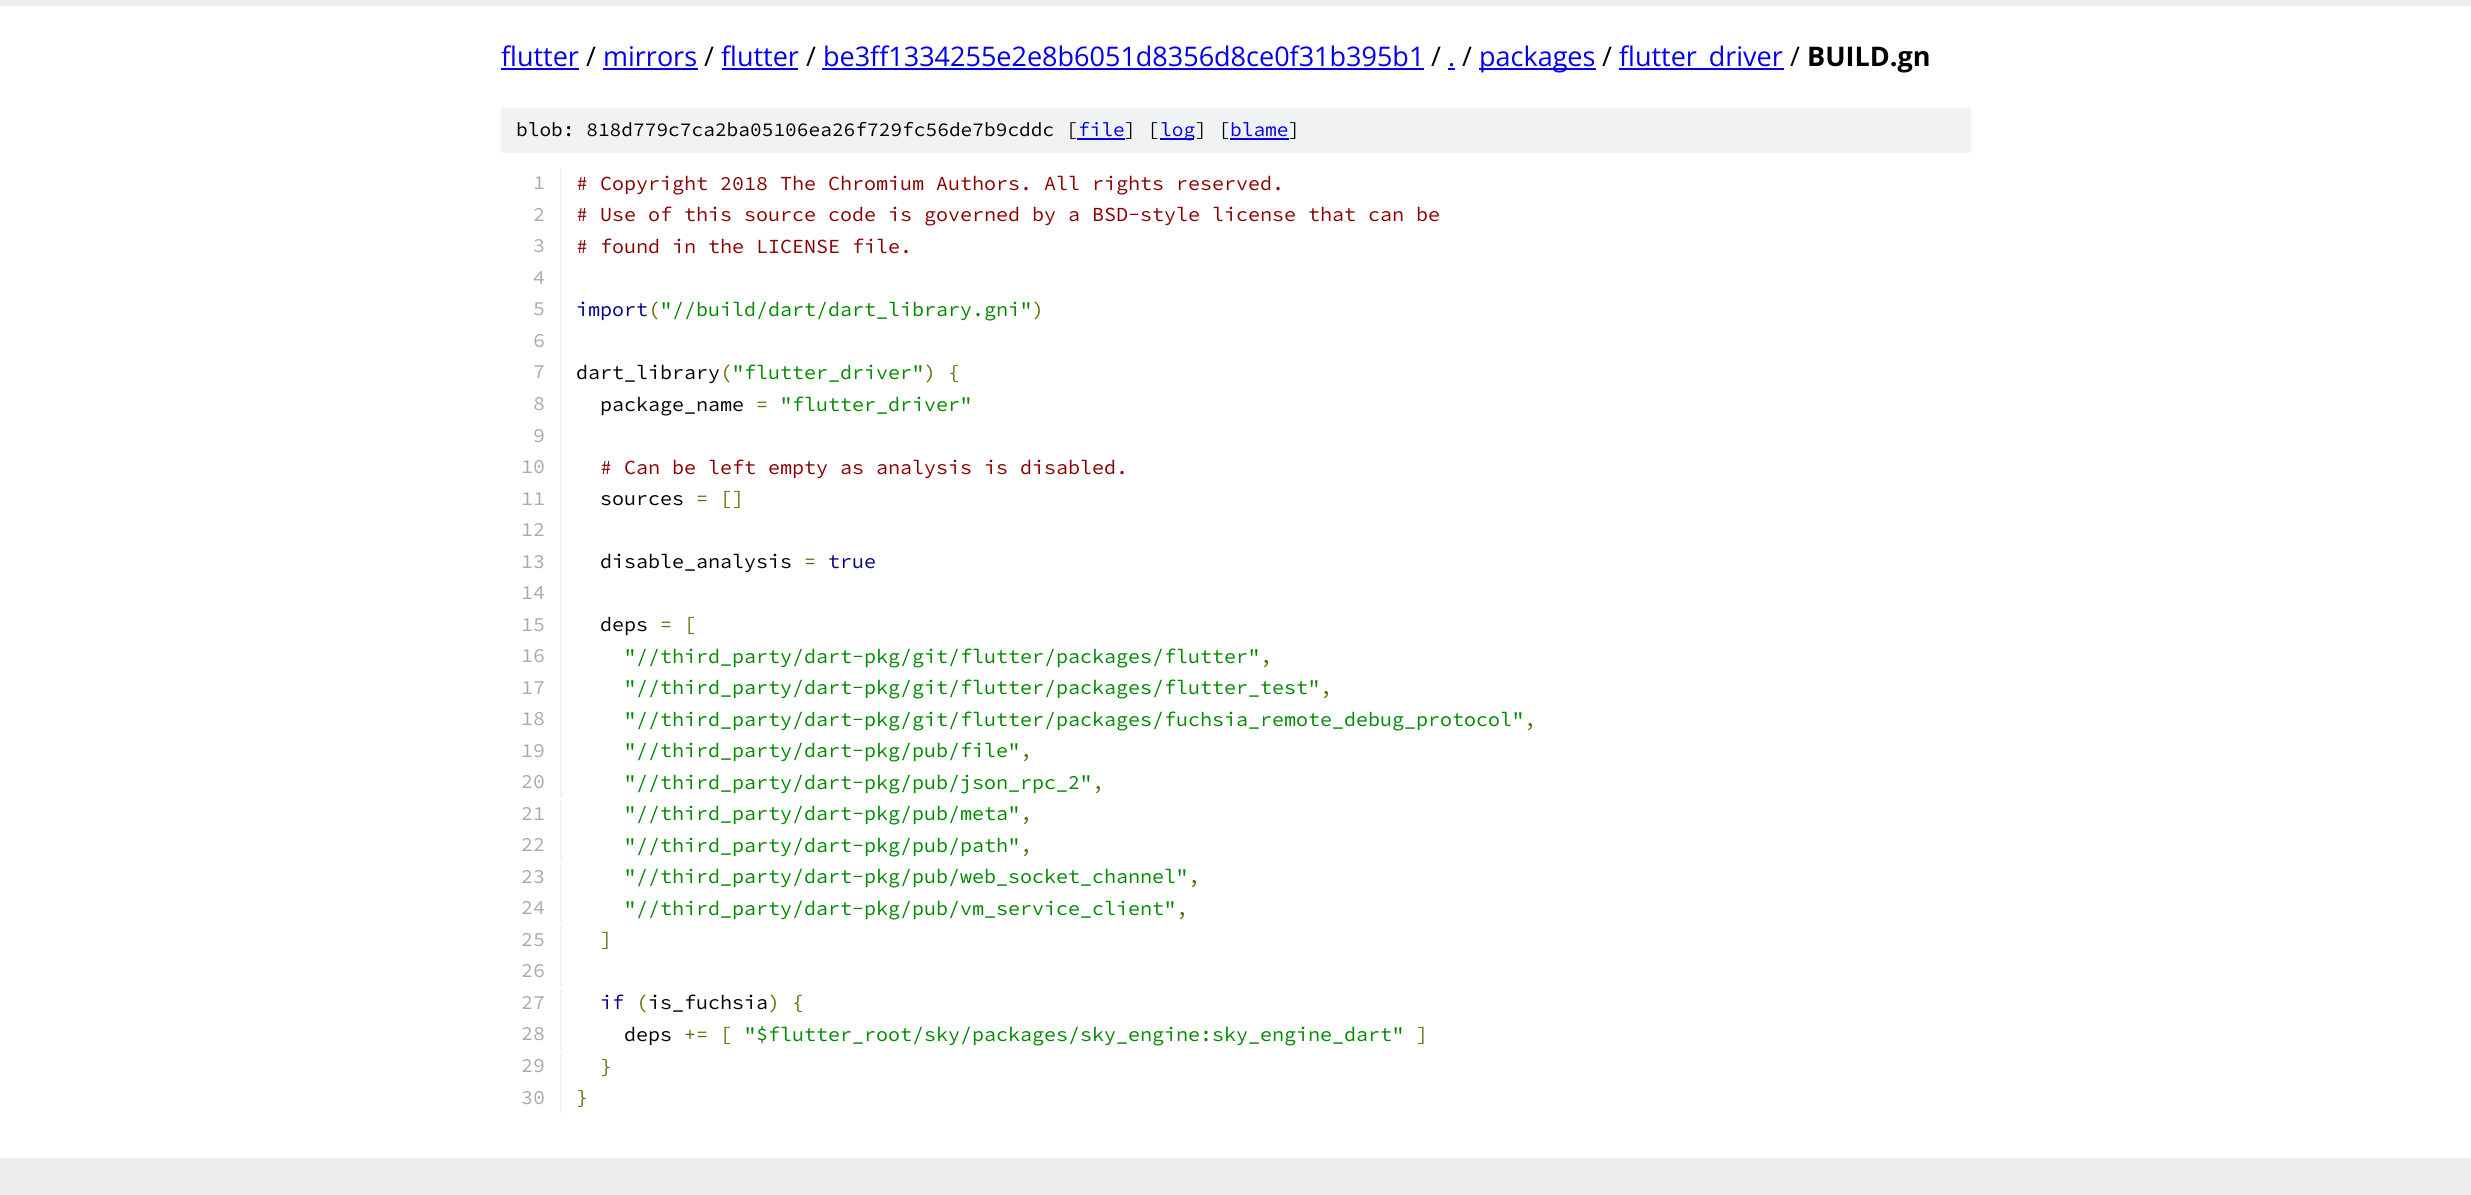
#include <cairo.h>
#include <math.h>
#include <stddef.h>


static void ink(cairo_t *ctx, unsigned color) {
    cairo_set_source_rgb(ctx, (color >> 16) / 255.0, (color >> 8 & 255) / 255.0, (color & 255) / 255.0);
}

int main(void) {
    cairo_surface_t *surface = cairo_image_surface_create(CAIRO_FORMAT_RGB24, 2471, 1195);
    cairo_t *ctx = cairo_create(surface);
    cairo_font_options_t *options = cairo_font_options_create();
    cairo_font_options_set_hint_metrics(options, CAIRO_HINT_METRICS_OFF);
    cairo_font_options_set_hint_style(options, CAIRO_HINT_STYLE_NONE);
    cairo_set_font_options(ctx, options);
    cairo_set_miter_limit(ctx, 4);
    ink(ctx, 0xFFFFFF);
    cairo_paint(ctx);
    ink(ctx, 0xEEEEEE);
    cairo_rectangle(ctx, 0, 0, 2471, 6);
    cairo_fill(ctx);
    cairo_select_font_face(ctx, "Open Sans", CAIRO_FONT_SLANT_NORMAL, CAIRO_FONT_WEIGHT_NORMAL);
    cairo_set_font_size(ctx, 27);
    ink(ctx, 0x0000EE);
    cairo_move_to(ctx, 501, 66);
    cairo_show_text(ctx, "flutter");
    cairo_rectangle(ctx, 501, 68, 78, 2);
    cairo_fill(ctx);
    ink(ctx, 0x000000);
    cairo_move_to(ctx, 586, 66);
    cairo_show_text(ctx, "/");
    ink(ctx, 0x0000EE);
    cairo_move_to(ctx, 603, 66);
    cairo_show_text(ctx, "mirrors");
    cairo_rectangle(ctx, 603, 68, 95, 2);
    cairo_fill(ctx);
    ink(ctx, 0x000000);
    cairo_move_to(ctx, 704, 66);
    cairo_show_text(ctx, "/");
    ink(ctx, 0x0000EE);
    cairo_move_to(ctx, 721, 66);
    cairo_show_text(ctx, "flutter");
    cairo_rectangle(ctx, 722, 68, 76, 2);
    cairo_fill(ctx);
    ink(ctx, 0x000000);
    cairo_move_to(ctx, 806, 66);
    cairo_show_text(ctx, "/");
    ink(ctx, 0x0000EE);
    cairo_move_to(ctx, 823, 66);
    cairo_show_text(ctx, "be3ff1334255e2e8b6051d8356d8ce0f31b395b1");
    cairo_rectangle(ctx, 822, 68, 602, 2);
    cairo_fill(ctx);
    ink(ctx, 0x000000);
    cairo_move_to(ctx, 1431, 66);
    cairo_show_text(ctx, "/");
    ink(ctx, 0x0000EE);
    cairo_move_to(ctx, 1448, 66);
    cairo_show_text(ctx, ".");
    cairo_rectangle(ctx, 1448, 68, 7, 2);
    cairo_fill(ctx);
    ink(ctx, 0x000000);
    cairo_move_to(ctx, 1462, 66);
    cairo_show_text(ctx, "/");
    ink(ctx, 0x0000EE);
    cairo_rectangle(ctx, 1479, 68, 117, 2);
    cairo_fill(ctx);
    cairo_move_to(ctx, 1479, 66);
    cairo_show_text(ctx, "packages");
    ink(ctx, 0x000000);
    cairo_move_to(ctx, 1602, 66);
    cairo_show_text(ctx, "/");
    ink(ctx, 0x0000EE);
    cairo_rectangle(ctx, 1619, 68, 165, 2);
    cairo_fill(ctx);
    cairo_move_to(ctx, 1619, 66);
    cairo_show_text(ctx, "flutter_driver");
    ink(ctx, 0x000000);
    cairo_move_to(ctx, 1790, 66);
    cairo_show_text(ctx, "/");
    cairo_select_font_face(ctx, "Open Sans", CAIRO_FONT_SLANT_NORMAL, CAIRO_FONT_WEIGHT_BOLD);
    cairo_move_to(ctx, 1807, 66);
    cairo_show_text(ctx, "BUILD.gn");
    ink(ctx, 0xF1F2F3);
    cairo_rectangle(ctx, 501, 108, 1470, 45);
    cairo_fill(ctx);
    cairo_select_font_face(ctx, "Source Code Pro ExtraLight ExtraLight", CAIRO_FONT_SLANT_NORMAL, CAIRO_FONT_WEIGHT_NORMAL);
    cairo_set_font_size(ctx, 19.5);
    ink(ctx, 0x000000);
    cairo_move_to(ctx, 516, 136);
    cairo_show_text(ctx, "blob: 818d779c7ca2ba05106ea26f729fc56de7b9cddc [");
    ink(ctx, 0x0000EE);
    cairo_move_to(ctx, 1078, 136);
    cairo_show_text(ctx, "file");
    cairo_rectangle(ctx, 1077, 138, 48, 2);
    cairo_fill(ctx);
    ink(ctx, 0x000000);
    cairo_move_to(ctx, 1124, 136);
    cairo_show_text(ctx, "] [");
    ink(ctx, 0x0000EE);
    cairo_rectangle(ctx, 1160, 138, 34, 2);
    cairo_fill(ctx);
    cairo_move_to(ctx, 1160, 136);
    cairo_show_text(ctx, "log");
    ink(ctx, 0x000000);
    cairo_move_to(ctx, 1195, 136);
    cairo_show_text(ctx, "] [");
    ink(ctx, 0x0000EE);
    cairo_move_to(ctx, 1230, 136);
    cairo_show_text(ctx, "blame");
    cairo_rectangle(ctx, 1230, 138, 59, 2);
    cairo_fill(ctx);
    ink(ctx, 0x000000);
    cairo_move_to(ctx, 1288, 136);
    cairo_show_text(ctx, "]");
    ink(ctx, 0xF1F2F3);
    cairo_rectangle(ctx, 560, 168, 2, 536);
    cairo_fill(ctx);
    cairo_set_font_size(ctx, 20);
    ink(ctx, 0xAAAAAA);
    cairo_move_to(ctx, 533, 189);
    cairo_show_text(ctx, "1");
    ink(ctx, 0x880000);
    cairo_move_to(ctx, 576, 190);
    cairo_show_text(ctx, "# Copyright 2018 The Chromium Authors. All rights reserved.");
    ink(ctx, 0xAAAAAA);
    cairo_move_to(ctx, 533, 221);
    cairo_show_text(ctx, "2");
    ink(ctx, 0x880000);
    cairo_move_to(ctx, 576, 221);
    cairo_show_text(ctx, "# Use of this source code is governed by a BSD-style license that can be");
    ink(ctx, 0xAAAAAA);
    cairo_move_to(ctx, 533, 252);
    cairo_show_text(ctx, "3");
    ink(ctx, 0x880000);
    cairo_move_to(ctx, 576, 253);
    cairo_show_text(ctx, "# found in the LICENSE file.");
    ink(ctx, 0xAAAAAA);
    cairo_move_to(ctx, 533, 284);
    cairo_show_text(ctx, "4");
    cairo_move_to(ctx, 533, 315);
    cairo_show_text(ctx, "5");
    ink(ctx, 0x000088);
    cairo_move_to(ctx, 576, 316);
    cairo_show_text(ctx, "import");
    ink(ctx, 0x666600);
    cairo_move_to(ctx, 648, 316);
    cairo_show_text(ctx, "(");
    ink(ctx, 0x008800);
    cairo_move_to(ctx, 660, 316);
    cairo_show_text(ctx, "\"//build/dart/dart_library.gni\"");
    ink(ctx, 0x666600);
    cairo_move_to(ctx, 1032, 316);
    cairo_show_text(ctx, ")");
    ink(ctx, 0xAAAAAA);
    cairo_move_to(ctx, 533, 347);
    cairo_show_text(ctx, "6");
    cairo_move_to(ctx, 533, 378);
    cairo_show_text(ctx, "7");
    ink(ctx, 0x000000);
    cairo_move_to(ctx, 576, 379);
    cairo_show_text(ctx, "dart_library");
    ink(ctx, 0x666600);
    cairo_move_to(ctx, 720, 379);
    cairo_show_text(ctx, "(");
    ink(ctx, 0x008800);
    cairo_move_to(ctx, 732, 379);
    cairo_show_text(ctx, "\"flutter_driver\"");
    ink(ctx, 0x666600);
    cairo_move_to(ctx, 924, 379);
    cairo_show_text(ctx, ") {");
    ink(ctx, 0xAAAAAA);
    cairo_move_to(ctx, 533, 410);
    cairo_show_text(ctx, "8");
    ink(ctx, 0x000000);
    cairo_move_to(ctx, 600, 411);
    cairo_show_text(ctx, "package_name");
    ink(ctx, 0x666600);
    cairo_move_to(ctx, 756, 411);
    cairo_show_text(ctx, "=");
    ink(ctx, 0x008800);
    cairo_move_to(ctx, 780, 411);
    cairo_show_text(ctx, "\"flutter_driver\"");
    ink(ctx, 0xAAAAAA);
    cairo_move_to(ctx, 533, 442);
    cairo_show_text(ctx, "9");
    cairo_move_to(ctx, 521, 473);
    cairo_show_text(ctx, "10");
    ink(ctx, 0x880000);
    cairo_move_to(ctx, 600, 474);
    cairo_show_text(ctx, "# Can be left empty as analysis is disabled.");
    ink(ctx, 0xAAAAAA);
    cairo_move_to(ctx, 521, 505);
    cairo_show_text(ctx, "11");
    ink(ctx, 0x000000);
    cairo_move_to(ctx, 600, 505);
    cairo_show_text(ctx, "sources");
    ink(ctx, 0x666600);
    cairo_move_to(ctx, 696, 505);
    cairo_show_text(ctx, "= []");
    ink(ctx, 0xAAAAAA);
    cairo_move_to(ctx, 521, 536);
    cairo_show_text(ctx, "12");
    cairo_move_to(ctx, 521, 568);
    cairo_show_text(ctx, "13");
    ink(ctx, 0x000000);
    cairo_move_to(ctx, 600, 568);
    cairo_show_text(ctx, "disable_analysis");
    ink(ctx, 0x666600);
    cairo_move_to(ctx, 804, 568);
    cairo_show_text(ctx, "=");
    ink(ctx, 0x000088);
    cairo_move_to(ctx, 828, 568);
    cairo_show_text(ctx, "true");
    ink(ctx, 0xAAAAAA);
    cairo_move_to(ctx, 521, 599);
    cairo_show_text(ctx, "14");
    cairo_move_to(ctx, 521, 631);
    cairo_show_text(ctx, "15");
    ink(ctx, 0x000000);
    cairo_move_to(ctx, 600, 631);
    cairo_show_text(ctx, "deps");
    ink(ctx, 0x666600);
    cairo_move_to(ctx, 660, 631);
    cairo_show_text(ctx, "= [");
    ink(ctx, 0xAAAAAA);
    cairo_move_to(ctx, 521, 662);
    cairo_show_text(ctx, "16");
    ink(ctx, 0x008800);
    cairo_move_to(ctx, 624, 663);
    cairo_show_text(ctx, "\"//third_party/dart-pkg/git/flutter/packages/flutter\"");
    ink(ctx, 0x666600);
    cairo_move_to(ctx, 1260, 663);
    cairo_show_text(ctx, ",");
    ink(ctx, 0xAAAAAA);
    cairo_move_to(ctx, 521, 694);
    cairo_show_text(ctx, "17");
    ink(ctx, 0x008800);
    cairo_move_to(ctx, 624, 694);
    cairo_show_text(ctx, "\"//third_party/dart-pkg/git/flutter/packages/flutter_test\"");
    ink(ctx, 0x666600);
    cairo_move_to(ctx, 1320, 694);
    cairo_show_text(ctx, ",");
    ink(ctx, 0xF1F2F3);
    cairo_rectangle(ctx, 560, 705, 2, 30);
    cairo_fill(ctx);
    ink(ctx, 0xAAAAAA);
    cairo_move_to(ctx, 521, 725);
    cairo_show_text(ctx, "18");
    ink(ctx, 0x008800);
    cairo_move_to(ctx, 624, 726);
    cairo_show_text(ctx, "\"//third_party/dart-pkg/git/flutter/packages/fuchsia_remote_debug_protocol\"");
    ink(ctx, 0x666600);
    cairo_move_to(ctx, 1524, 726);
    cairo_show_text(ctx, ",");
    ink(ctx, 0xF1F2F3);
    cairo_rectangle(ctx, 560, 737, 2, 30);
    cairo_fill(ctx);
    ink(ctx, 0xAAAAAA);
    cairo_move_to(ctx, 521, 757);
    cairo_show_text(ctx, "19");
    ink(ctx, 0x008800);
    cairo_move_to(ctx, 624, 757);
    cairo_show_text(ctx, "\"//third_party/dart-pkg/pub/file\"");
    ink(ctx, 0x666600);
    cairo_move_to(ctx, 1020, 757);
    cairo_show_text(ctx, ",");
    ink(ctx, 0xF1F2F3);
    cairo_rectangle(ctx, 560, 768, 2, 30);
    cairo_fill(ctx);
    ink(ctx, 0xAAAAAA);
    cairo_move_to(ctx, 521, 788);
    cairo_show_text(ctx, "20");
    ink(ctx, 0x008800);
    cairo_move_to(ctx, 624, 789);
    cairo_show_text(ctx, "\"//third_party/dart-pkg/pub/json_rpc_2\"");
    ink(ctx, 0x666600);
    cairo_move_to(ctx, 1092, 789);
    cairo_show_text(ctx, ",");
    ink(ctx, 0xF1F2F3);
    cairo_rectangle(ctx, 560, 800, 2, 30);
    cairo_fill(ctx);
    ink(ctx, 0xAAAAAA);
    cairo_move_to(ctx, 521, 820);
    cairo_show_text(ctx, "21");
    ink(ctx, 0x008800);
    cairo_move_to(ctx, 624, 820);
    cairo_show_text(ctx, "\"//third_party/dart-pkg/pub/meta\"");
    ink(ctx, 0x666600);
    cairo_move_to(ctx, 1020, 820);
    cairo_show_text(ctx, ",");
    ink(ctx, 0xF1F2F3);
    cairo_rectangle(ctx, 560, 831, 2, 30);
    cairo_fill(ctx);
    ink(ctx, 0xAAAAAA);
    cairo_move_to(ctx, 521, 851);
    cairo_show_text(ctx, "22");
    ink(ctx, 0x008800);
    cairo_move_to(ctx, 624, 852);
    cairo_show_text(ctx, "\"//third_party/dart-pkg/pub/path\"");
    ink(ctx, 0x666600);
    cairo_move_to(ctx, 1020, 852);
    cairo_show_text(ctx, ",");
    ink(ctx, 0xF1F2F3);
    cairo_rectangle(ctx, 560, 863, 2, 30);
    cairo_fill(ctx);
    ink(ctx, 0xAAAAAA);
    cairo_move_to(ctx, 521, 883);
    cairo_show_text(ctx, "23");
    ink(ctx, 0x008800);
    cairo_move_to(ctx, 624, 883);
    cairo_show_text(ctx, "\"//third_party/dart-pkg/pub/web_socket_channel\"");
    ink(ctx, 0x666600);
    cairo_move_to(ctx, 1188, 883);
    cairo_show_text(ctx, ",");
    ink(ctx, 0xF1F2F3);
    cairo_rectangle(ctx, 560, 894, 2, 30);
    cairo_fill(ctx);
    ink(ctx, 0xAAAAAA);
    cairo_move_to(ctx, 521, 914);
    cairo_show_text(ctx, "24");
    ink(ctx, 0x008800);
    cairo_move_to(ctx, 624, 915);
    cairo_show_text(ctx, "\"//third_party/dart-pkg/pub/vm_service_client\"");
    ink(ctx, 0x666600);
    cairo_move_to(ctx, 1176, 915);
    cairo_show_text(ctx, ",");
    ink(ctx, 0xF1F2F3);
    cairo_rectangle(ctx, 560, 926, 2, 30);
    cairo_fill(ctx);
    ink(ctx, 0xAAAAAA);
    cairo_move_to(ctx, 521, 946);
    cairo_show_text(ctx, "25");
    ink(ctx, 0x666600);
    cairo_move_to(ctx, 600, 946);
    cairo_show_text(ctx, "]");
    ink(ctx, 0xF1F2F3);
    cairo_rectangle(ctx, 560, 957, 2, 30);
    cairo_fill(ctx);
    ink(ctx, 0xAAAAAA);
    cairo_move_to(ctx, 521, 977);
    cairo_show_text(ctx, "26");
    ink(ctx, 0xF1F2F3);
    cairo_rectangle(ctx, 560, 989, 2, 30);
    cairo_fill(ctx);
    ink(ctx, 0xAAAAAA);
    cairo_move_to(ctx, 521, 1009);
    cairo_show_text(ctx, "27");
    ink(ctx, 0x000088);
    cairo_move_to(ctx, 600, 1009);
    cairo_show_text(ctx, "if");
    ink(ctx, 0x666600);
    cairo_move_to(ctx, 636, 1009);
    cairo_show_text(ctx, "(");
    ink(ctx, 0x000000);
    cairo_move_to(ctx, 648, 1009);
    cairo_show_text(ctx, "is_fuchsia");
    ink(ctx, 0x666600);
    cairo_move_to(ctx, 768, 1009);
    cairo_show_text(ctx, ") {");
    ink(ctx, 0xF1F2F3);
    cairo_rectangle(ctx, 560, 1020, 2, 30);
    cairo_fill(ctx);
    ink(ctx, 0xAAAAAA);
    cairo_move_to(ctx, 521, 1040);
    cairo_show_text(ctx, "28");
    ink(ctx, 0x000000);
    cairo_move_to(ctx, 624, 1041);
    cairo_show_text(ctx, "deps");
    ink(ctx, 0x666600);
    cairo_move_to(ctx, 684, 1041);
    cairo_show_text(ctx, "+= [");
    ink(ctx, 0x008800);
    cairo_move_to(ctx, 744, 1041);
    cairo_show_text(ctx, "\"$flutter_root/sky/packages/sky_engine:sky_engine_dart\"");
    ink(ctx, 0x666600);
    cairo_move_to(ctx, 1416, 1041);
    cairo_show_text(ctx, "]");
    ink(ctx, 0xF1F2F3);
    cairo_rectangle(ctx, 560, 1052, 2, 30);
    cairo_fill(ctx);
    ink(ctx, 0xAAAAAA);
    cairo_move_to(ctx, 521, 1072);
    cairo_show_text(ctx, "29");
    ink(ctx, 0x666600);
    cairo_move_to(ctx, 600, 1073);
    cairo_show_text(ctx, "}");
    ink(ctx, 0xF1F2F3);
    cairo_rectangle(ctx, 560, 1083, 2, 30);
    cairo_fill(ctx);
    ink(ctx, 0xAAAAAA);
    cairo_move_to(ctx, 521, 1104);
    cairo_show_text(ctx, "30");
    ink(ctx, 0x666600);
    cairo_move_to(ctx, 576, 1104);
    cairo_show_text(ctx, "}");
    ink(ctx, 0xEEEEEE);
    cairo_rectangle(ctx, 0, 1158, 2471, 37);
    cairo_fill(ctx);
    cairo_surface_write_to_png(surface, "image.png");
    cairo_font_options_destroy(options);
    cairo_destroy(ctx);
    cairo_surface_destroy(surface);
    return 0;
}
